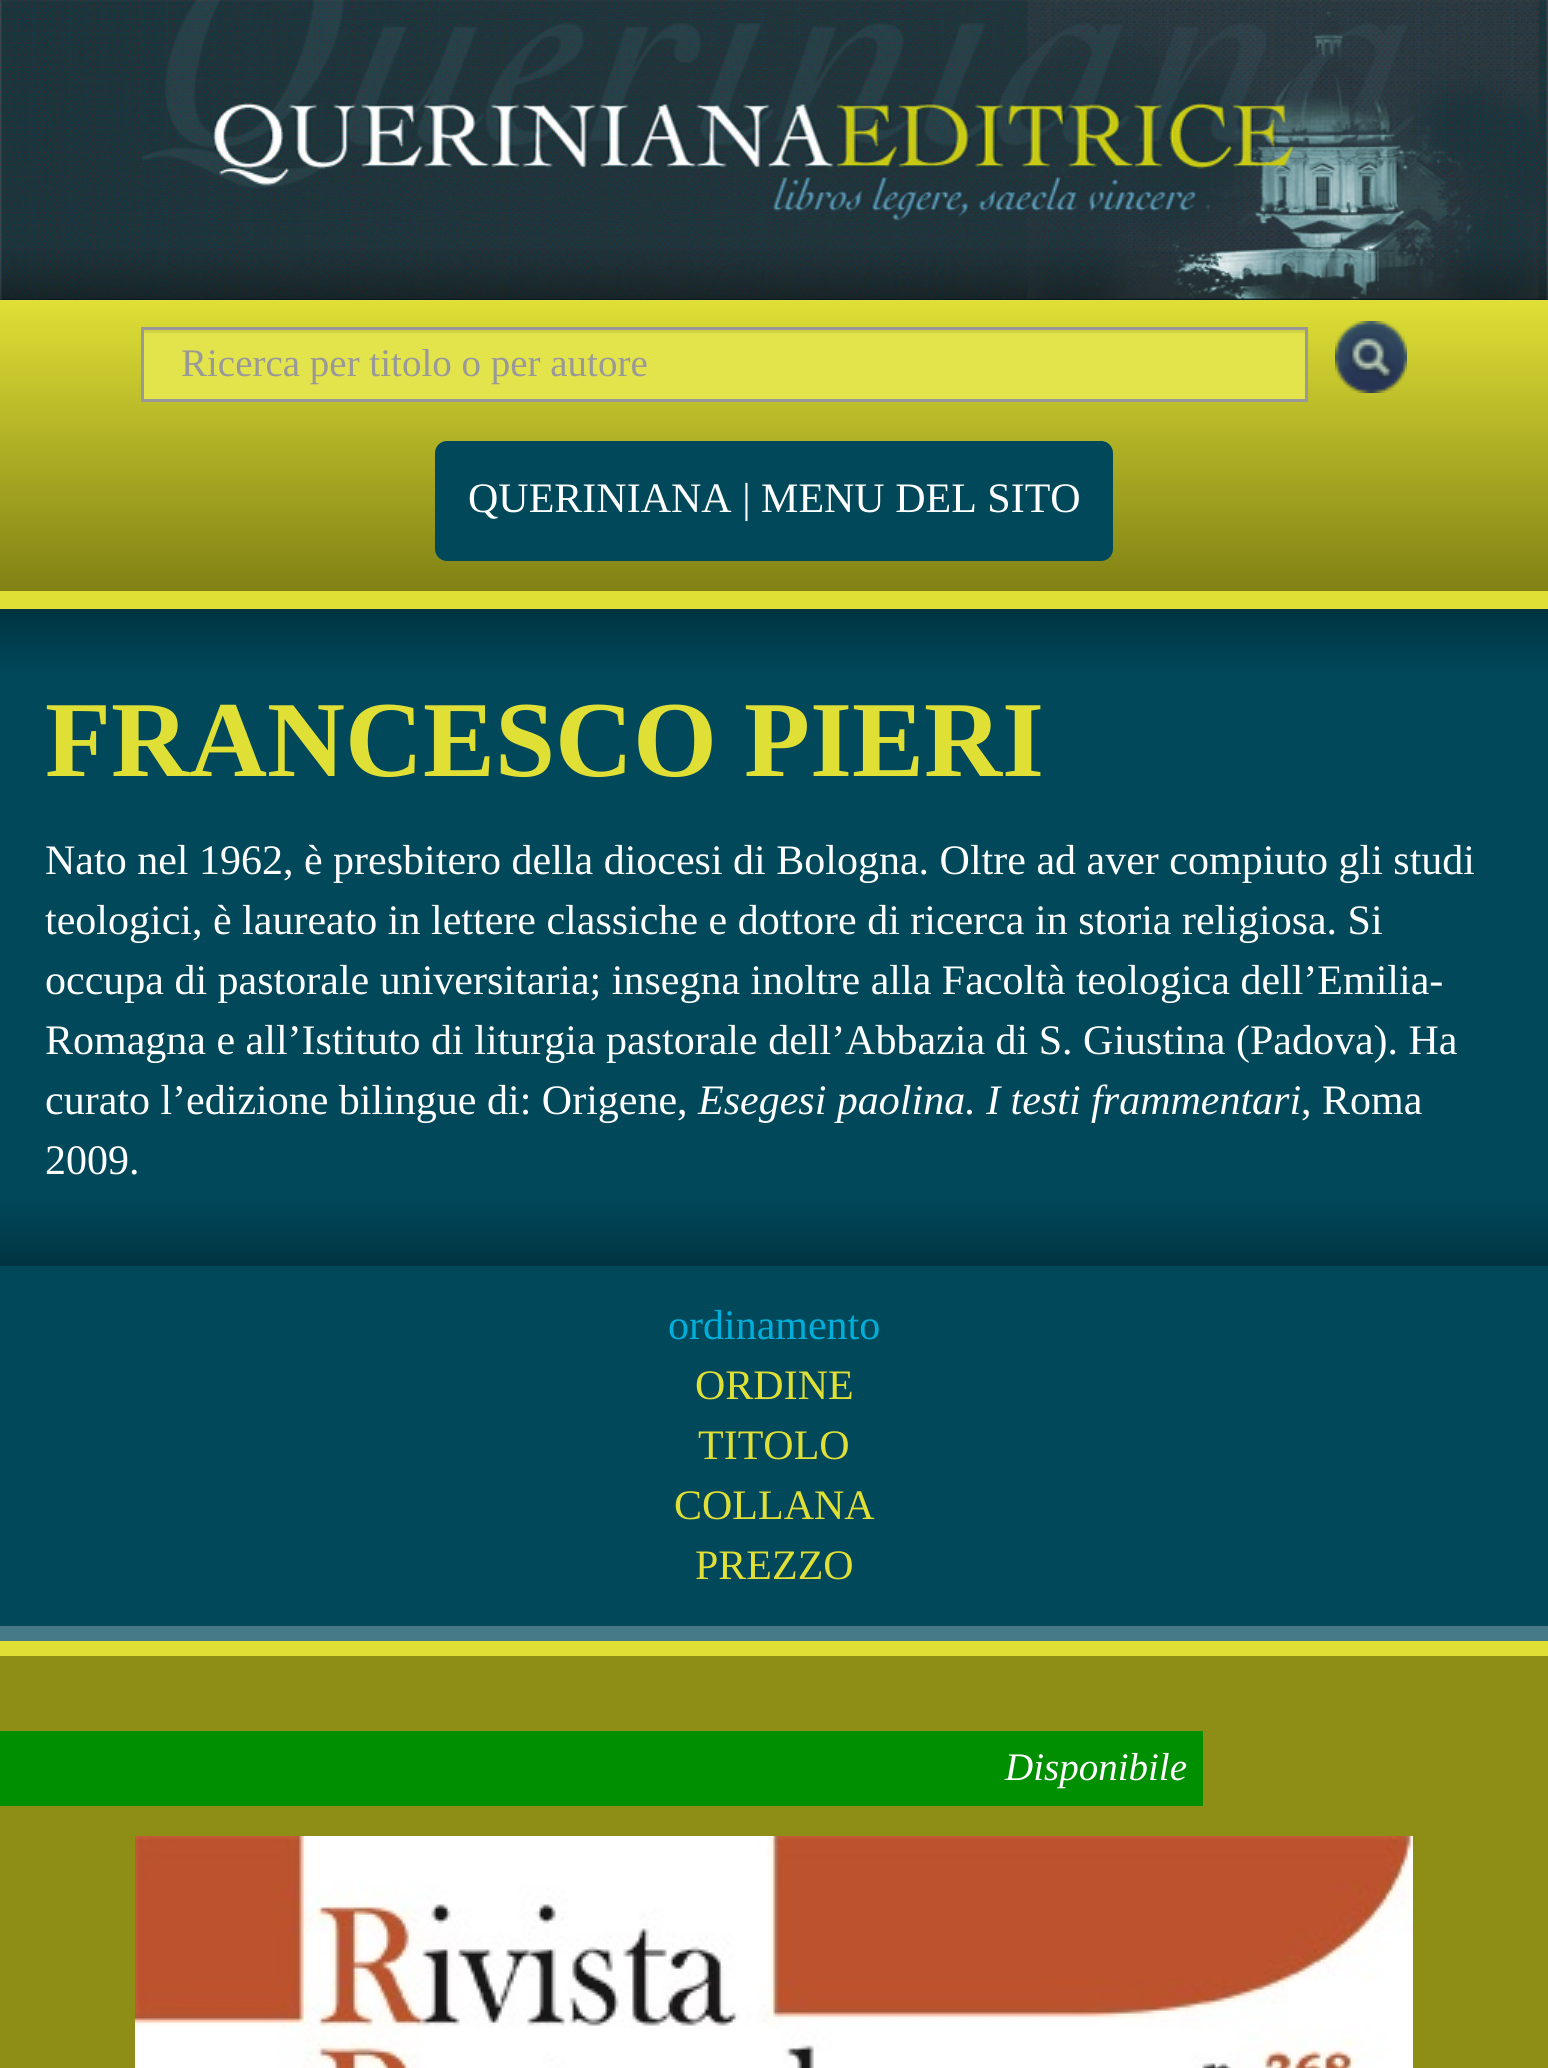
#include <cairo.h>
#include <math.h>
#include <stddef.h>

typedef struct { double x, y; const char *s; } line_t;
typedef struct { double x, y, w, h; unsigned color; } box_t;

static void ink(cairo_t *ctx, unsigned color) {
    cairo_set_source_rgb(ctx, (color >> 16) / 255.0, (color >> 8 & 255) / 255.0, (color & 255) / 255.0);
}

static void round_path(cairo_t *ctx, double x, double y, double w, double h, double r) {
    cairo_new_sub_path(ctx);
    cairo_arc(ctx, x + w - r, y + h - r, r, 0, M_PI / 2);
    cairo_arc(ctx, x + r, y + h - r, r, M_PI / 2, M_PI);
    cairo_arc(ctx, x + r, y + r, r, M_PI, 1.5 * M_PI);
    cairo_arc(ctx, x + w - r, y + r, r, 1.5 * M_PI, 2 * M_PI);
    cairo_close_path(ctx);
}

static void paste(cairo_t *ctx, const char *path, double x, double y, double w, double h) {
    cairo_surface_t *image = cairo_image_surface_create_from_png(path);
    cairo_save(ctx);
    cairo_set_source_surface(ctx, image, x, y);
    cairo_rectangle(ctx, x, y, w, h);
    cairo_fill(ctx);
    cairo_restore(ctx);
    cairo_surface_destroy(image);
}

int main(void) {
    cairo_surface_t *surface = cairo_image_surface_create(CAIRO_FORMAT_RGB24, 1548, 2068);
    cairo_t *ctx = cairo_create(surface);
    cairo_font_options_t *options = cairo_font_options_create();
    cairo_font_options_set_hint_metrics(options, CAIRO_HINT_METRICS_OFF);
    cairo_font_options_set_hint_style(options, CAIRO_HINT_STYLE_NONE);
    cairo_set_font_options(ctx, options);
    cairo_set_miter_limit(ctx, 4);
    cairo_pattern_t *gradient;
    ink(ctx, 0xFFFFFF);
    cairo_paint(ctx);
    paste(ctx, "media/1.png", 0, 0, 1548, 300);
    gradient = cairo_pattern_create_linear(774, 300, 774, 591);
    cairo_pattern_add_color_stop_rgba(gradient, 0, 0.875, 0.875, 0.212, 1);
    cairo_pattern_add_color_stop_rgba(gradient, 1, 0.506, 0.506, 0.082, 1);
    cairo_set_source(ctx, gradient);
    cairo_pattern_destroy(gradient);
    cairo_rectangle(ctx, 0, 300, 1548, 291);
    cairo_fill(ctx);
    {
        static const box_t items[] = {
            {0, 591, 1548, 18, 0xDFDF36},
            {144, 333, 1161, 66, 0xE3E34C},
            {144, 330, 1161, 3, 0xD2D246},
        };
        for (size_t i = 0; i < sizeof items / sizeof *items; i++) {
            ink(ctx, items[i].color);
            cairo_rectangle(ctx, items[i].x, items[i].y, items[i].w, items[i].h);
            cairo_fill(ctx);
        }
    }
    cairo_rectangle(ctx, 142.5, 328.5, 1164, 72);
    ink(ctx, 0x999999);
    cairo_set_line_width(ctx, 3);
    cairo_stroke(ctx);
    cairo_select_font_face(ctx, "Liberation Serif", CAIRO_FONT_SLANT_NORMAL, CAIRO_FONT_WEIGHT_NORMAL);
    cairo_set_font_size(ctx, 39);
    cairo_move_to(ctx, 181, 376);
    cairo_show_text(ctx, "Ricerca per titolo o per autore");
    paste(ctx, "media/2.png", 1335, 321, 72, 72);
    ink(ctx, 0x00485A);
    round_path(ctx, 435, 441, 678, 120, 12);
    cairo_fill(ctx);
    cairo_set_font_size(ctx, 42);
    ink(ctx, 0xFFFFFF);
    cairo_move_to(ctx, 468, 512);
    cairo_show_text(ctx, "QUERINIANA | MENU DEL SITO");
    gradient = cairo_pattern_create_linear(774, 1266, 774, 609);
    cairo_pattern_add_color_stop_rgba(gradient, 0, 0, 0.204, 0.255, 1);
    cairo_pattern_add_color_stop_rgba(gradient, 0.1, 0, 0.282, 0.353, 1);
    cairo_pattern_add_color_stop_rgba(gradient, 0.9, 0, 0.282, 0.353, 1);
    cairo_pattern_add_color_stop_rgba(gradient, 1, 0, 0.204, 0.255, 1);
    cairo_set_source(ctx, gradient);
    cairo_pattern_destroy(gradient);
    cairo_rectangle(ctx, 0, 609, 1548, 657);
    cairo_fill(ctx);
    cairo_select_font_face(ctx, "Liberation Serif", CAIRO_FONT_SLANT_NORMAL, CAIRO_FONT_WEIGHT_BOLD);
    cairo_set_font_size(ctx, 108);
    ink(ctx, 0xDFDF36);
    cairo_move_to(ctx, 45, 776);
    cairo_show_text(ctx, "FRANCESCO PIERI");
    cairo_select_font_face(ctx, "Liberation Serif", CAIRO_FONT_SLANT_NORMAL, CAIRO_FONT_WEIGHT_NORMAL);
    cairo_set_font_size(ctx, 42);
    ink(ctx, 0xFFFFFF);
    {
        static const line_t items[] = {
            {45, 874, "Nato nel 1962, è presbitero della diocesi di Bologna. Oltre ad aver compiuto gli studi"},
            {45, 934, "teologici, è laureato in lettere classiche e dottore di ricerca in storia religiosa. Si"},
            {45, 994, "occupa di pastorale universitaria; insegna inoltre alla Facoltà teologica dell’Emilia-"},
            {45, 1054, "Romagna e all’Istituto di liturgia pastorale dell’Abbazia di S. Giustina (Padova). Ha"},
            {45, 1114, "curato l’edizione bilingue di: Origene,"},
        };
        for (size_t i = 0; i < sizeof items / sizeof *items; i++) {
            cairo_move_to(ctx, items[i].x, items[i].y);
            cairo_show_text(ctx, items[i].s);
        }
    }
    cairo_select_font_face(ctx, "Liberation Serif", CAIRO_FONT_SLANT_ITALIC, CAIRO_FONT_WEIGHT_NORMAL);
    cairo_move_to(ctx, 698, 1114);
    cairo_show_text(ctx, "Esegesi paolina. I testi frammentari");
    cairo_select_font_face(ctx, "Liberation Serif", CAIRO_FONT_SLANT_NORMAL, CAIRO_FONT_WEIGHT_NORMAL);
    cairo_move_to(ctx, 1301, 1114);
    cairo_show_text(ctx, ", Roma");
    cairo_move_to(ctx, 45, 1174);
    cairo_show_text(ctx, "2009.");
    {
        static const box_t items[] = {
            {0, 1656, 1548, 412, 0x8E8E17},
            {0, 1266, 1548, 360, 0x00485A},
            {0, 1626, 1548, 15, 0x467A88},
        };
        for (size_t i = 0; i < sizeof items / sizeof *items; i++) {
            ink(ctx, items[i].color);
            cairo_rectangle(ctx, items[i].x, items[i].y, items[i].w, items[i].h);
            cairo_fill(ctx);
        }
    }
    ink(ctx, 0x00AEDA);
    cairo_move_to(ctx, 668, 1339);
    cairo_show_text(ctx, "ordinamento");
    ink(ctx, 0xDFDF36);
    {
        static const line_t items[] = {
            {695, 1399, "ORDINE"},
            {698, 1459, "TITOLO"},
            {674, 1519, "COLLANA"},
            {695, 1579, "PREZZO"},
        };
        for (size_t i = 0; i < sizeof items / sizeof *items; i++) {
            cairo_move_to(ctx, items[i].x, items[i].y);
            cairo_show_text(ctx, items[i].s);
        }
    }
    cairo_rectangle(ctx, 0, 1641, 1548, 15);
    cairo_fill(ctx);
    ink(ctx, 0x008F00);
    cairo_rectangle(ctx, 0, 1731, 1203, 75);
    cairo_fill(ctx);
    cairo_select_font_face(ctx, "Liberation Serif", CAIRO_FONT_SLANT_ITALIC, CAIRO_FONT_WEIGHT_NORMAL);
    cairo_set_font_size(ctx, 39);
    ink(ctx, 0xFFFFFF);
    cairo_move_to(ctx, 1005, 1780);
    cairo_show_text(ctx, "Disponibile");
    paste(ctx, "media/3.png", 135, 1836, 1278, 232);
    cairo_surface_write_to_png(surface, "image.png");
    cairo_font_options_destroy(options);
    cairo_destroy(ctx);
    cairo_surface_destroy(surface);
    return 0;
}
